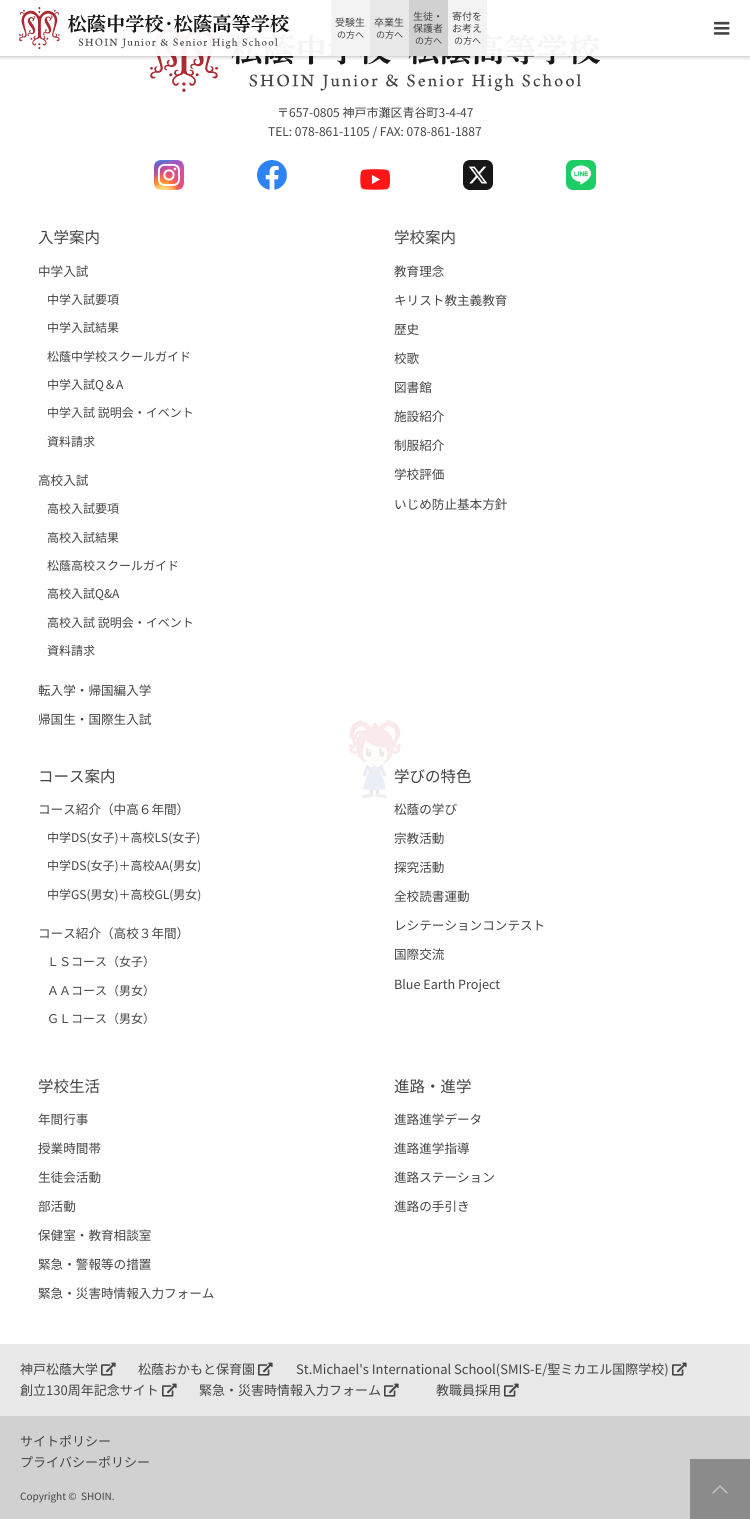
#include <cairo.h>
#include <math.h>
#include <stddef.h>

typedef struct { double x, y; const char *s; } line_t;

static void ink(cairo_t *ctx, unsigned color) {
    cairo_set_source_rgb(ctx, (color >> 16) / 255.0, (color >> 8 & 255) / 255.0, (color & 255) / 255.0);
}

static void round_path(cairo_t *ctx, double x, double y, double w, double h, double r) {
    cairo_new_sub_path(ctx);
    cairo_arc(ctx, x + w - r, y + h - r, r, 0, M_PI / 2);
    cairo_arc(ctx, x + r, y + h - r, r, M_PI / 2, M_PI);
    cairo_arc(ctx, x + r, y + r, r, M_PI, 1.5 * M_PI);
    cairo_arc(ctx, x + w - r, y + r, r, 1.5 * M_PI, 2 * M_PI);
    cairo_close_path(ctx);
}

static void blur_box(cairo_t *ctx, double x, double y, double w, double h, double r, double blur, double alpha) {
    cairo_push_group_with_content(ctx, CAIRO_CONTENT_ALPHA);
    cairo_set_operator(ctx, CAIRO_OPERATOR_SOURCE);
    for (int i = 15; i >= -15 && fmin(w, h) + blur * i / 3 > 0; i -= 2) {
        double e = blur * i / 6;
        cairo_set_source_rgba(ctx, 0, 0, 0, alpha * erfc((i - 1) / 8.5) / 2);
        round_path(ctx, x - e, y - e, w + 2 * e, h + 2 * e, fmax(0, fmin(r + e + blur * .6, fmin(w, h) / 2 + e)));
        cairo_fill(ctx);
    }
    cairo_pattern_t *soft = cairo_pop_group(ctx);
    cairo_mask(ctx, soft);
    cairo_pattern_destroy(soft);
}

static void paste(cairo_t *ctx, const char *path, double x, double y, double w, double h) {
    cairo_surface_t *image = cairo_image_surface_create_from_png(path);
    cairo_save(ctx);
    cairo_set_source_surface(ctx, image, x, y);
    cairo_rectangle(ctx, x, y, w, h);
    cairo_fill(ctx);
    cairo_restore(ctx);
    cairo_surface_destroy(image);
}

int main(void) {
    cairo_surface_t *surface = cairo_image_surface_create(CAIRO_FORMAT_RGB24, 750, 1519);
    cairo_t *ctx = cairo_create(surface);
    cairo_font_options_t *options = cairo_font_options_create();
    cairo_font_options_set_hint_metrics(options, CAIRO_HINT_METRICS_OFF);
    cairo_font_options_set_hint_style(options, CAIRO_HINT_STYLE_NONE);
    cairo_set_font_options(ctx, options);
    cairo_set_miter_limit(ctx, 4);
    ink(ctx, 0xFFFFFF);
    cairo_paint(ctx);
    paste(ctx, "media/3.png", 150, 22, 450, 70);
    cairo_save(ctx);
    cairo_rectangle(ctx, 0, 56, 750, 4);
    cairo_clip(ctx);
    ink(ctx, 0x171717);
    blur_box(ctx, 0, 0, 750, 56, 0, 2.5, 0.4);
    cairo_restore(ctx);
    cairo_set_source_rgba(ctx, 1, 1, 1, 0.95);
    cairo_rectangle(ctx, 151, 22, 449, 34);
    cairo_fill(ctx);
    paste(ctx, "media/1.png", 19, 7, 270, 42);
    ink(ctx, 0xF3F3F3);
    cairo_rectangle(ctx, 331, 0, 39, 56);
    cairo_fill(ctx);
    cairo_select_font_face(ctx, "Noto Sans JP", CAIRO_FONT_SLANT_NORMAL, CAIRO_FONT_WEIGHT_NORMAL);
    cairo_set_font_size(ctx, 10);
    ink(ctx, 0x454545);
    cairo_move_to(ctx, 335, 26);
    cairo_show_text(ctx, "受験生");
    cairo_set_font_size(ctx, 9);
    cairo_move_to(ctx, 337, 38);
    cairo_show_text(ctx, "の方へ");
    ink(ctx, 0xE8E8E8);
    cairo_rectangle(ctx, 370, 0, 39, 56);
    cairo_fill(ctx);
    cairo_set_font_size(ctx, 10);
    ink(ctx, 0x454545);
    cairo_move_to(ctx, 374, 26);
    cairo_show_text(ctx, "卒業生");
    cairo_set_font_size(ctx, 9);
    cairo_move_to(ctx, 376, 38);
    cairo_show_text(ctx, "の方へ");
    ink(ctx, 0xD1D1D1);
    cairo_rectangle(ctx, 409, 0, 39, 56);
    cairo_fill(ctx);
    cairo_set_font_size(ctx, 10);
    ink(ctx, 0x454545);
    cairo_move_to(ctx, 413, 20);
    cairo_show_text(ctx, "生徒・");
    cairo_move_to(ctx, 413, 32);
    cairo_show_text(ctx, "保護者");
    cairo_set_font_size(ctx, 9);
    cairo_move_to(ctx, 415, 44);
    cairo_show_text(ctx, "の方へ");
    ink(ctx, 0xF3F3F3);
    cairo_rectangle(ctx, 448, 0, 39, 56);
    cairo_fill(ctx);
    cairo_set_font_size(ctx, 10);
    ink(ctx, 0x454545);
    cairo_move_to(ctx, 452, 20);
    cairo_show_text(ctx, "寄付を");
    cairo_move_to(ctx, 452, 32);
    cairo_show_text(ctx, "お考え");
    cairo_set_font_size(ctx, 9);
    cairo_move_to(ctx, 454, 44);
    cairo_show_text(ctx, "の方へ");
    paste(ctx, "media/2.png", 714, 21, 16, 14);
    cairo_set_font_size(ctx, 12);
    cairo_move_to(ctx, 277, 117);
    cairo_show_text(ctx, "〒657-0805 神戸市灘区青谷町3-4-47");
    cairo_move_to(ctx, 268, 136);
    cairo_show_text(ctx, "TEL: 078-861-1105 / FAX: 078-861-1887");
    paste(ctx, "media/4.png", 154, 160, 30, 30);
    paste(ctx, "media/5.png", 257, 160, 30, 30);
    paste(ctx, "media/6.png", 360, 169, 30, 21);
    paste(ctx, "media/7.png", 463, 160, 30, 30);
    paste(ctx, "media/8.png", 566, 160, 30, 30);
    cairo_set_font_size(ctx, 15.5);
    cairo_move_to(ctx, 38, 243);
    cairo_show_text(ctx, "入学案内");
    cairo_set_font_size(ctx, 12.6);
    cairo_move_to(ctx, 38, 276);
    cairo_show_text(ctx, "中学入試");
    cairo_set_font_size(ctx, 12);
    {
        static const line_t items[] = {
            {47, 304, "中学入試要項"},
            {47, 332, "中学入試結果"},
            {47, 361, "松蔭中学校スクールガイド"},
            {47, 389, "中学入試Q＆A"},
            {47, 417, "中学入試 説明会・イベント"},
            {47, 446, "資料請求"},
        };
        for (size_t i = 0; i < sizeof items / sizeof *items; i++) {
            cairo_move_to(ctx, items[i].x, items[i].y);
            cairo_show_text(ctx, items[i].s);
        }
    }
    cairo_set_font_size(ctx, 12.6);
    cairo_move_to(ctx, 38, 485);
    cairo_show_text(ctx, "高校入試");
    cairo_set_font_size(ctx, 12);
    {
        static const line_t items[] = {
            {47, 513, "高校入試要項"},
            {47, 542, "高校入試結果"},
            {47, 570, "松蔭高校スクールガイド"},
            {47, 598, "高校入試Q&A"},
            {47, 627, "高校入試 説明会・イベント"},
            {47, 655, "資料請求"},
        };
        for (size_t i = 0; i < sizeof items / sizeof *items; i++) {
            cairo_move_to(ctx, items[i].x, items[i].y);
            cairo_show_text(ctx, items[i].s);
        }
    }
    cairo_set_font_size(ctx, 12.6);
    cairo_move_to(ctx, 38, 695);
    cairo_show_text(ctx, "転入学・帰国編入学");
    cairo_move_to(ctx, 38, 724);
    cairo_show_text(ctx, "帰国生・国際生入試");
    cairo_set_font_size(ctx, 15.5);
    cairo_move_to(ctx, 394, 243);
    cairo_show_text(ctx, "学校案内");
    cairo_set_font_size(ctx, 12.6);
    {
        static const line_t items[] = {
            {394, 276, "教育理念"},
            {394, 305, "キリスト教主義教育"},
            {394, 334, "歴史"},
            {394, 363, "校歌"},
            {394, 392, "図書館"},
            {394, 421, "施設紹介"},
            {394, 450, "制服紹介"},
            {394, 479, "学校評価"},
            {394, 509, "いじめ防止基本方針"},
        };
        for (size_t i = 0; i < sizeof items / sizeof *items; i++) {
            cairo_move_to(ctx, items[i].x, items[i].y);
            cairo_show_text(ctx, items[i].s);
        }
    }
    cairo_set_font_size(ctx, 15.5);
    cairo_move_to(ctx, 38, 782);
    cairo_show_text(ctx, "コース案内");
    cairo_set_font_size(ctx, 12.6);
    cairo_move_to(ctx, 38, 814);
    cairo_show_text(ctx, "コース紹介（中高６年間）");
    cairo_set_font_size(ctx, 12);
    {
        static const line_t items[] = {
            {47, 842, "中学DS(女子)＋高校LS(女子)"},
            {47, 870, "中学DS(女子)＋高校AA(男女)"},
            {47, 899, "中学GS(男女)＋高校GL(男女)"},
        };
        for (size_t i = 0; i < sizeof items / sizeof *items; i++) {
            cairo_move_to(ctx, items[i].x, items[i].y);
            cairo_show_text(ctx, items[i].s);
        }
    }
    cairo_set_font_size(ctx, 12.6);
    cairo_move_to(ctx, 38, 938);
    cairo_show_text(ctx, "コース紹介（高校３年間）");
    cairo_set_font_size(ctx, 12);
    {
        static const line_t items[] = {
            {47, 966, "ＬＳコース（女子）"},
            {47, 995, "ＡＡコース（男女）"},
            {47, 1023, "ＧＬコース（男女）"},
        };
        for (size_t i = 0; i < sizeof items / sizeof *items; i++) {
            cairo_move_to(ctx, items[i].x, items[i].y);
            cairo_show_text(ctx, items[i].s);
        }
    }
    cairo_set_font_size(ctx, 15.5);
    cairo_move_to(ctx, 394, 782);
    cairo_show_text(ctx, "学びの特色");
    cairo_set_font_size(ctx, 12.6);
    {
        static const line_t items[] = {
            {394, 814, "松蔭の学び"},
            {394, 843, "宗教活動"},
            {394, 872, "探究活動"},
            {394, 901, "全校読書運動"},
            {394, 930, "レシテーションコンテスト"},
            {394, 959, "国際交流"},
            {394, 989, "Blue Earth Project"},
        };
        for (size_t i = 0; i < sizeof items / sizeof *items; i++) {
            cairo_move_to(ctx, items[i].x, items[i].y);
            cairo_show_text(ctx, items[i].s);
        }
    }
    cairo_set_font_size(ctx, 15.5);
    cairo_move_to(ctx, 38, 1092);
    cairo_show_text(ctx, "学校生活");
    cairo_set_font_size(ctx, 12.6);
    {
        static const line_t items[] = {
            {38, 1124, "年間行事"},
            {38, 1153, "授業時間帯"},
            {38, 1182, "生徒会活動"},
            {38, 1211, "部活動"},
            {38, 1240, "保健室・教育相談室"},
            {38, 1269, "緊急・警報等の措置"},
            {38, 1298, "緊急・災害時情報入力フォーム"},
        };
        for (size_t i = 0; i < sizeof items / sizeof *items; i++) {
            cairo_move_to(ctx, items[i].x, items[i].y);
            cairo_show_text(ctx, items[i].s);
        }
    }
    cairo_set_font_size(ctx, 15.5);
    cairo_move_to(ctx, 394, 1092);
    cairo_show_text(ctx, "進路・進学");
    cairo_set_font_size(ctx, 12.6);
    {
        static const line_t items[] = {
            {394, 1124, "進路進学データ"},
            {394, 1153, "進路進学指導"},
            {394, 1182, "進路ステーション"},
            {394, 1211, "進路の手引き"},
        };
        for (size_t i = 0; i < sizeof items / sizeof *items; i++) {
            cairo_move_to(ctx, items[i].x, items[i].y);
            cairo_show_text(ctx, items[i].s);
        }
    }
    ink(ctx, 0xE8E8E8);
    cairo_rectangle(ctx, 0, 1344, 750, 72);
    cairo_fill(ctx);
    cairo_set_font_size(ctx, 13);
    ink(ctx, 0x454545);
    cairo_move_to(ctx, 20, 1374);
    cairo_show_text(ctx, "神戸松蔭大学");
    paste(ctx, "media/9.png", 101, 1362, 15, 14);
    cairo_move_to(ctx, 138, 1374);
    cairo_show_text(ctx, "松蔭おかもと保育園");
    paste(ctx, "media/9.png", 258, 1362, 15, 14);
    cairo_move_to(ctx, 296, 1374);
    cairo_show_text(ctx, "St.Michael's International School(SMIS-E/聖ミカエル国際学校)");
    paste(ctx, "media/9.png", 672, 1362, 15, 14);
    cairo_move_to(ctx, 20, 1395);
    cairo_show_text(ctx, "創立130周年記念サイト");
    paste(ctx, "media/9.png", 162, 1383, 15, 14);
    cairo_move_to(ctx, 199, 1395);
    cairo_show_text(ctx, "緊急・災害時情報入力フォーム");
    paste(ctx, "media/9.png", 384, 1383, 15, 14);
    cairo_move_to(ctx, 436, 1395);
    cairo_show_text(ctx, "教職員採用");
    paste(ctx, "media/9.png", 504, 1383, 15, 14);
    ink(ctx, 0xD1D1D1);
    cairo_rectangle(ctx, 0, 1416, 750, 103);
    cairo_fill(ctx);
    ink(ctx, 0x454545);
    cairo_move_to(ctx, 20, 1446);
    cairo_show_text(ctx, "サイトポリシー");
    cairo_move_to(ctx, 20, 1467);
    cairo_show_text(ctx, "プライバシーポリシー");
    cairo_set_font_size(ctx, 10);
    cairo_move_to(ctx, 20, 1500);
    cairo_show_text(ctx, "Copyright ©");
    cairo_move_to(ctx, 81, 1500);
    cairo_show_text(ctx, "SHOIN.");
    ink(ctx, 0x8B8B8B);
    cairo_rectangle(ctx, 690, 1459, 60, 60);
    cairo_fill(ctx);
    paste(ctx, "media/10.png", 712, 1485, 16, 9);
    paste(ctx, "media/11.png", 349, 720, 53, 78);
    cairo_surface_write_to_png(surface, "image.png");
    cairo_font_options_destroy(options);
    cairo_destroy(ctx);
    cairo_surface_destroy(surface);
    return 0;
}
